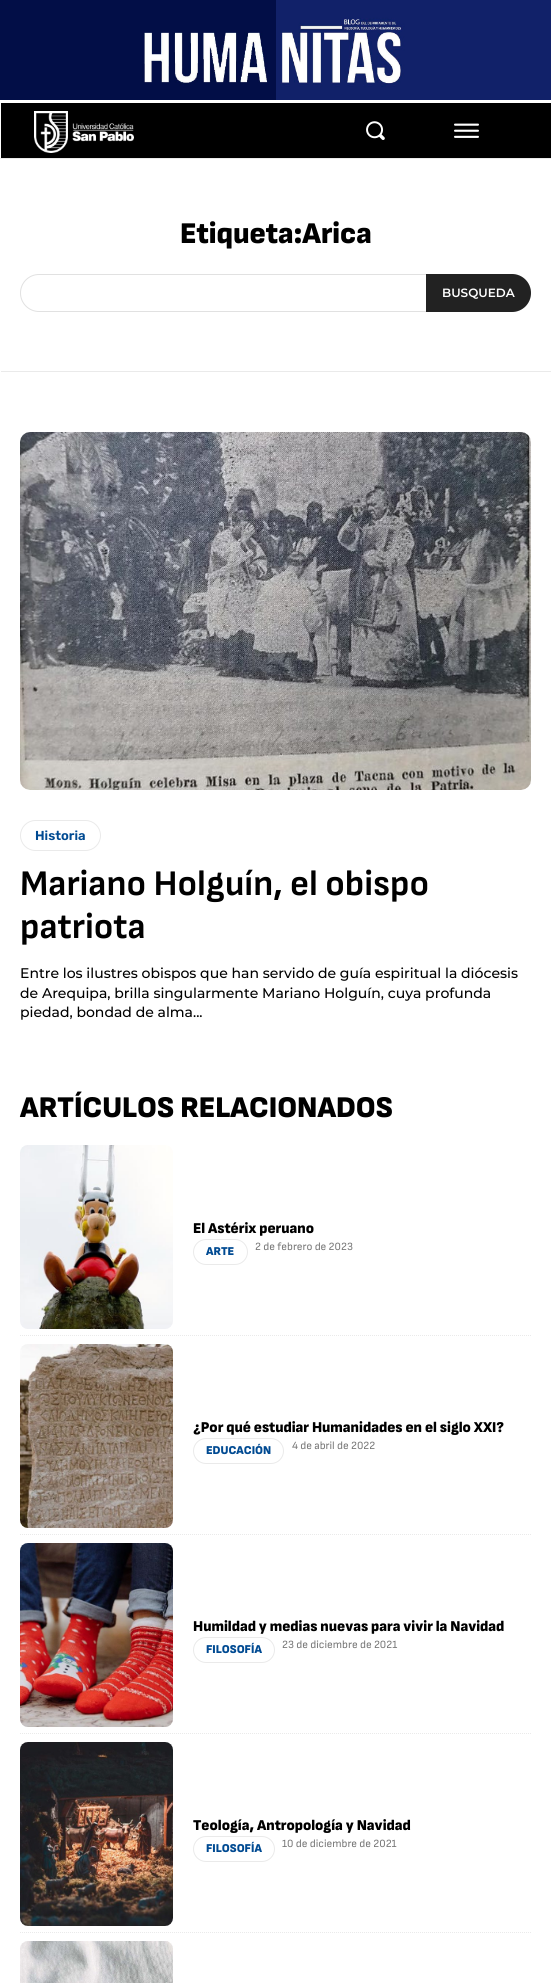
#include <cairo.h>
#include <math.h>
#include <stddef.h>

typedef struct { double x, y; const char *s; } line_t;

static void ink(cairo_t *ctx, unsigned color) {
    cairo_set_source_rgb(ctx, (color >> 16) / 255.0, (color >> 8 & 255) / 255.0, (color & 255) / 255.0);
}

static void round_path(cairo_t *ctx, double x, double y, double w, double h, double r) {
    cairo_new_sub_path(ctx);
    cairo_arc(ctx, x + w - r, y + h - r, r, 0, M_PI / 2);
    cairo_arc(ctx, x + r, y + h - r, r, M_PI / 2, M_PI);
    cairo_arc(ctx, x + r, y + r, r, M_PI, 1.5 * M_PI);
    cairo_arc(ctx, x + w - r, y + r, r, 1.5 * M_PI, 2 * M_PI);
    cairo_close_path(ctx);
}

static void paste(cairo_t *ctx, const char *path, double x, double y, double w, double h) {
    cairo_surface_t *image = cairo_image_surface_create_from_png(path);
    cairo_save(ctx);
    cairo_set_source_surface(ctx, image, x, y);
    cairo_rectangle(ctx, x, y, w, h);
    cairo_fill(ctx);
    cairo_restore(ctx);
    cairo_surface_destroy(image);
}

int main(void) {
    cairo_surface_t *surface = cairo_image_surface_create(CAIRO_FORMAT_RGB24, 551, 1983);
    cairo_t *ctx = cairo_create(surface);
    cairo_font_options_t *options = cairo_font_options_create();
    cairo_font_options_set_hint_metrics(options, CAIRO_HINT_METRICS_OFF);
    cairo_font_options_set_hint_style(options, CAIRO_HINT_STYLE_NONE);
    cairo_set_font_options(ctx, options);
    cairo_set_miter_limit(ctx, 4);
    ink(ctx, 0xFFFFFF);
    cairo_paint(ctx);
    ink(ctx, 0xEAEAEA);
    cairo_rectangle(ctx, 0, 158, 551, 1);
    cairo_fill(ctx);
    paste(ctx, "media/1.png", 0, 0, 276, 100);
    paste(ctx, "media/2.png", 276, 0, 275, 100);
    ink(ctx, 0x000000);
    cairo_rectangle(ctx, 1, 103, 550, 55);
    cairo_fill(ctx);
    paste(ctx, "media/3.png", 34, 111, 100, 42);
    paste(ctx, "media/4.png", 366, 121, 19, 19);
    paste(ctx, "media/5.png", 454, 123, 25, 15);
    cairo_select_font_face(ctx, "Sofia Sans Black", CAIRO_FONT_SLANT_NORMAL, CAIRO_FONT_WEIGHT_NORMAL);
    cairo_set_font_size(ctx, 30);
    cairo_move_to(ctx, 180, 243);
    cairo_show_text(ctx, "Etiqueta:Arica");
    round_path(ctx, 20.5, 274.5, 510, 37, 18.5);
    ink(ctx, 0xE1E1E1);
    cairo_set_line_width(ctx, 1);
    cairo_stroke(ctx);
    ink(ctx, 0x222222);
    cairo_new_path(ctx);
    cairo_move_to(ctx, 426, 274);
    cairo_line_to(ctx, 512, 274);
    cairo_curve_to(ctx, 522.5, 274, 531, 282.5, 531, 293);
    cairo_curve_to(ctx, 531, 303.5, 522.5, 312, 512, 312);
    cairo_line_to(ctx, 426, 312);
    cairo_close_path(ctx);
    cairo_fill(ctx);
    cairo_select_font_face(ctx, "Montserrat SemiBold", CAIRO_FONT_SLANT_NORMAL, CAIRO_FONT_WEIGHT_NORMAL);
    cairo_set_font_size(ctx, 12);
    ink(ctx, 0xFFFFFF);
    cairo_move_to(ctx, 442, 297);
    cairo_show_text(ctx, "BUSQUEDA");
    ink(ctx, 0xEAEAEA);
    cairo_rectangle(ctx, 1, 371, 550, 1);
    cairo_fill(ctx);
    paste(ctx, "media/6.png", 20, 432, 511, 358);
    round_path(ctx, 20.5, 820.5, 80, 30, 15);
    cairo_stroke(ctx);
    cairo_select_font_face(ctx, "Rubik SemiBold", CAIRO_FONT_SLANT_NORMAL, CAIRO_FONT_WEIGHT_NORMAL);
    cairo_set_font_size(ctx, 13);
    ink(ctx, 0x004A92);
    cairo_move_to(ctx, 35, 840);
    cairo_show_text(ctx, "Historia");
    cairo_select_font_face(ctx, "Sofia Sans", CAIRO_FONT_SLANT_NORMAL, CAIRO_FONT_WEIGHT_BOLD);
    cairo_set_font_size(ctx, 36);
    ink(ctx, 0x000000);
    cairo_move_to(ctx, 20, 895);
    cairo_show_text(ctx, "Mariano Holguín, el obispo");
    cairo_move_to(ctx, 20, 938);
    cairo_show_text(ctx, "patriota");
    cairo_select_font_face(ctx, "Montserrat Medium", CAIRO_FONT_SLANT_NORMAL, CAIRO_FONT_WEIGHT_NORMAL);
    cairo_set_font_size(ctx, 14);
    {
        static const line_t items[] = {
            {20, 978, "Entre los ilustres obispos que han servido de guía espiritual la diócesis"},
            {20, 998, "de Arequipa, brilla singularmente Mariano Holguín, cuya profunda"},
            {20, 1017, "piedad, bondad de alma..."},
        };
        for (size_t i = 0; i < sizeof items / sizeof *items; i++) {
            cairo_move_to(ctx, items[i].x, items[i].y);
            cairo_show_text(ctx, items[i].s);
        }
    }
    cairo_select_font_face(ctx, "Sofia Sans Black", CAIRO_FONT_SLANT_NORMAL, CAIRO_FONT_WEIGHT_NORMAL);
    cairo_set_font_size(ctx, 30);
    cairo_move_to(ctx, 20, 1117);
    cairo_show_text(ctx, "ARTÍCULOS RELACIONADOS");
    paste(ctx, "media/7.png", 20, 1145, 153, 184);
    cairo_set_font_size(ctx, 15);
    cairo_move_to(ctx, 193, 1233);
    cairo_show_text(ctx, "El Astérix peruano");
    round_path(ctx, 193.5, 1239.5, 54, 25, 12.5);
    ink(ctx, 0xEAEAEA);
    cairo_stroke(ctx);
    cairo_set_font_size(ctx, 12);
    ink(ctx, 0x004A92);
    cairo_move_to(ctx, 206, 1255);
    cairo_show_text(ctx, "ARTE");
    cairo_select_font_face(ctx, "Sofia Sans", CAIRO_FONT_SLANT_NORMAL, CAIRO_FONT_WEIGHT_NORMAL);
    cairo_set_font_size(ctx, 11);
    ink(ctx, 0x767676);
    cairo_move_to(ctx, 255, 1250);
    cairo_show_text(ctx, "2 de febrero de 2023");
    cairo_new_path(ctx);
    cairo_move_to(ctx, 20, 1335.5);
    cairo_line_to(ctx, 531, 1335.5);
    ink(ctx, 0xEAEAEA);
    cairo_set_dash(ctx, (double[]){1, 1}, 2, 0);
    cairo_stroke(ctx);
    paste(ctx, "media/8.png", 20, 1344, 153, 184);
    cairo_select_font_face(ctx, "Sofia Sans Black", CAIRO_FONT_SLANT_NORMAL, CAIRO_FONT_WEIGHT_NORMAL);
    cairo_set_font_size(ctx, 15);
    ink(ctx, 0x000000);
    cairo_move_to(ctx, 193, 1432);
    cairo_show_text(ctx, "¿Por qué estudiar Humanidades en el siglo XXI?");
    round_path(ctx, 193.5, 1438.5, 90, 25, 12.5);
    ink(ctx, 0xEAEAEA);
    cairo_set_dash(ctx, NULL, 0, 0);
    cairo_stroke(ctx);
    cairo_set_font_size(ctx, 12);
    ink(ctx, 0x004A92);
    cairo_move_to(ctx, 206, 1454);
    cairo_show_text(ctx, "EDUCACIÓN");
    cairo_select_font_face(ctx, "Sofia Sans", CAIRO_FONT_SLANT_NORMAL, CAIRO_FONT_WEIGHT_NORMAL);
    cairo_set_font_size(ctx, 11);
    ink(ctx, 0x767676);
    cairo_move_to(ctx, 292, 1449);
    cairo_show_text(ctx, "4 de abril de 2022");
    cairo_new_path(ctx);
    cairo_move_to(ctx, 20, 1534.5);
    cairo_line_to(ctx, 531, 1534.5);
    ink(ctx, 0xEAEAEA);
    cairo_set_dash(ctx, (double[]){1, 1}, 2, 0);
    cairo_stroke(ctx);
    paste(ctx, "media/9.png", 20, 1543, 153, 184);
    cairo_select_font_face(ctx, "Sofia Sans Black", CAIRO_FONT_SLANT_NORMAL, CAIRO_FONT_WEIGHT_NORMAL);
    cairo_set_font_size(ctx, 15);
    ink(ctx, 0x000000);
    cairo_move_to(ctx, 193, 1631);
    cairo_show_text(ctx, "Humildad y medias nuevas para vivir la Navidad");
    round_path(ctx, 193.5, 1637.5, 81, 25, 12.5);
    ink(ctx, 0xEAEAEA);
    cairo_set_dash(ctx, NULL, 0, 0);
    cairo_stroke(ctx);
    cairo_set_font_size(ctx, 12);
    ink(ctx, 0x004A92);
    cairo_move_to(ctx, 206, 1653);
    cairo_show_text(ctx, "FILOSOFÍA");
    cairo_select_font_face(ctx, "Sofia Sans", CAIRO_FONT_SLANT_NORMAL, CAIRO_FONT_WEIGHT_NORMAL);
    cairo_set_font_size(ctx, 11);
    ink(ctx, 0x767676);
    cairo_move_to(ctx, 282, 1648);
    cairo_show_text(ctx, "23 de diciembre de 2021");
    cairo_new_path(ctx);
    cairo_move_to(ctx, 20, 1733.5);
    cairo_line_to(ctx, 531, 1733.5);
    ink(ctx, 0xEAEAEA);
    cairo_set_dash(ctx, (double[]){1, 1}, 2, 0);
    cairo_stroke(ctx);
    paste(ctx, "media/10.png", 20, 1742, 153, 184);
    cairo_select_font_face(ctx, "Sofia Sans Black", CAIRO_FONT_SLANT_NORMAL, CAIRO_FONT_WEIGHT_NORMAL);
    cairo_set_font_size(ctx, 15);
    ink(ctx, 0x000000);
    cairo_move_to(ctx, 193, 1830);
    cairo_show_text(ctx, "Teología, Antropología y Navidad");
    round_path(ctx, 193.5, 1836.5, 81, 25, 12.5);
    ink(ctx, 0xEAEAEA);
    cairo_set_dash(ctx, NULL, 0, 0);
    cairo_stroke(ctx);
    cairo_set_font_size(ctx, 12);
    ink(ctx, 0x004A92);
    cairo_move_to(ctx, 206, 1852);
    cairo_show_text(ctx, "FILOSOFÍA");
    cairo_select_font_face(ctx, "Sofia Sans", CAIRO_FONT_SLANT_NORMAL, CAIRO_FONT_WEIGHT_NORMAL);
    cairo_set_font_size(ctx, 11);
    ink(ctx, 0x767676);
    cairo_move_to(ctx, 282, 1847);
    cairo_show_text(ctx, "10 de diciembre de 2021");
    cairo_new_path(ctx);
    cairo_move_to(ctx, 20, 1932.5);
    cairo_line_to(ctx, 531, 1932.5);
    ink(ctx, 0xEAEAEA);
    cairo_set_dash(ctx, (double[]){1, 1}, 2, 0);
    cairo_stroke(ctx);
    paste(ctx, "media/11.png", 20, 1941, 153, 42);
    cairo_surface_write_to_png(surface, "image.png");
    cairo_font_options_destroy(options);
    cairo_destroy(ctx);
    cairo_surface_destroy(surface);
    return 0;
}
